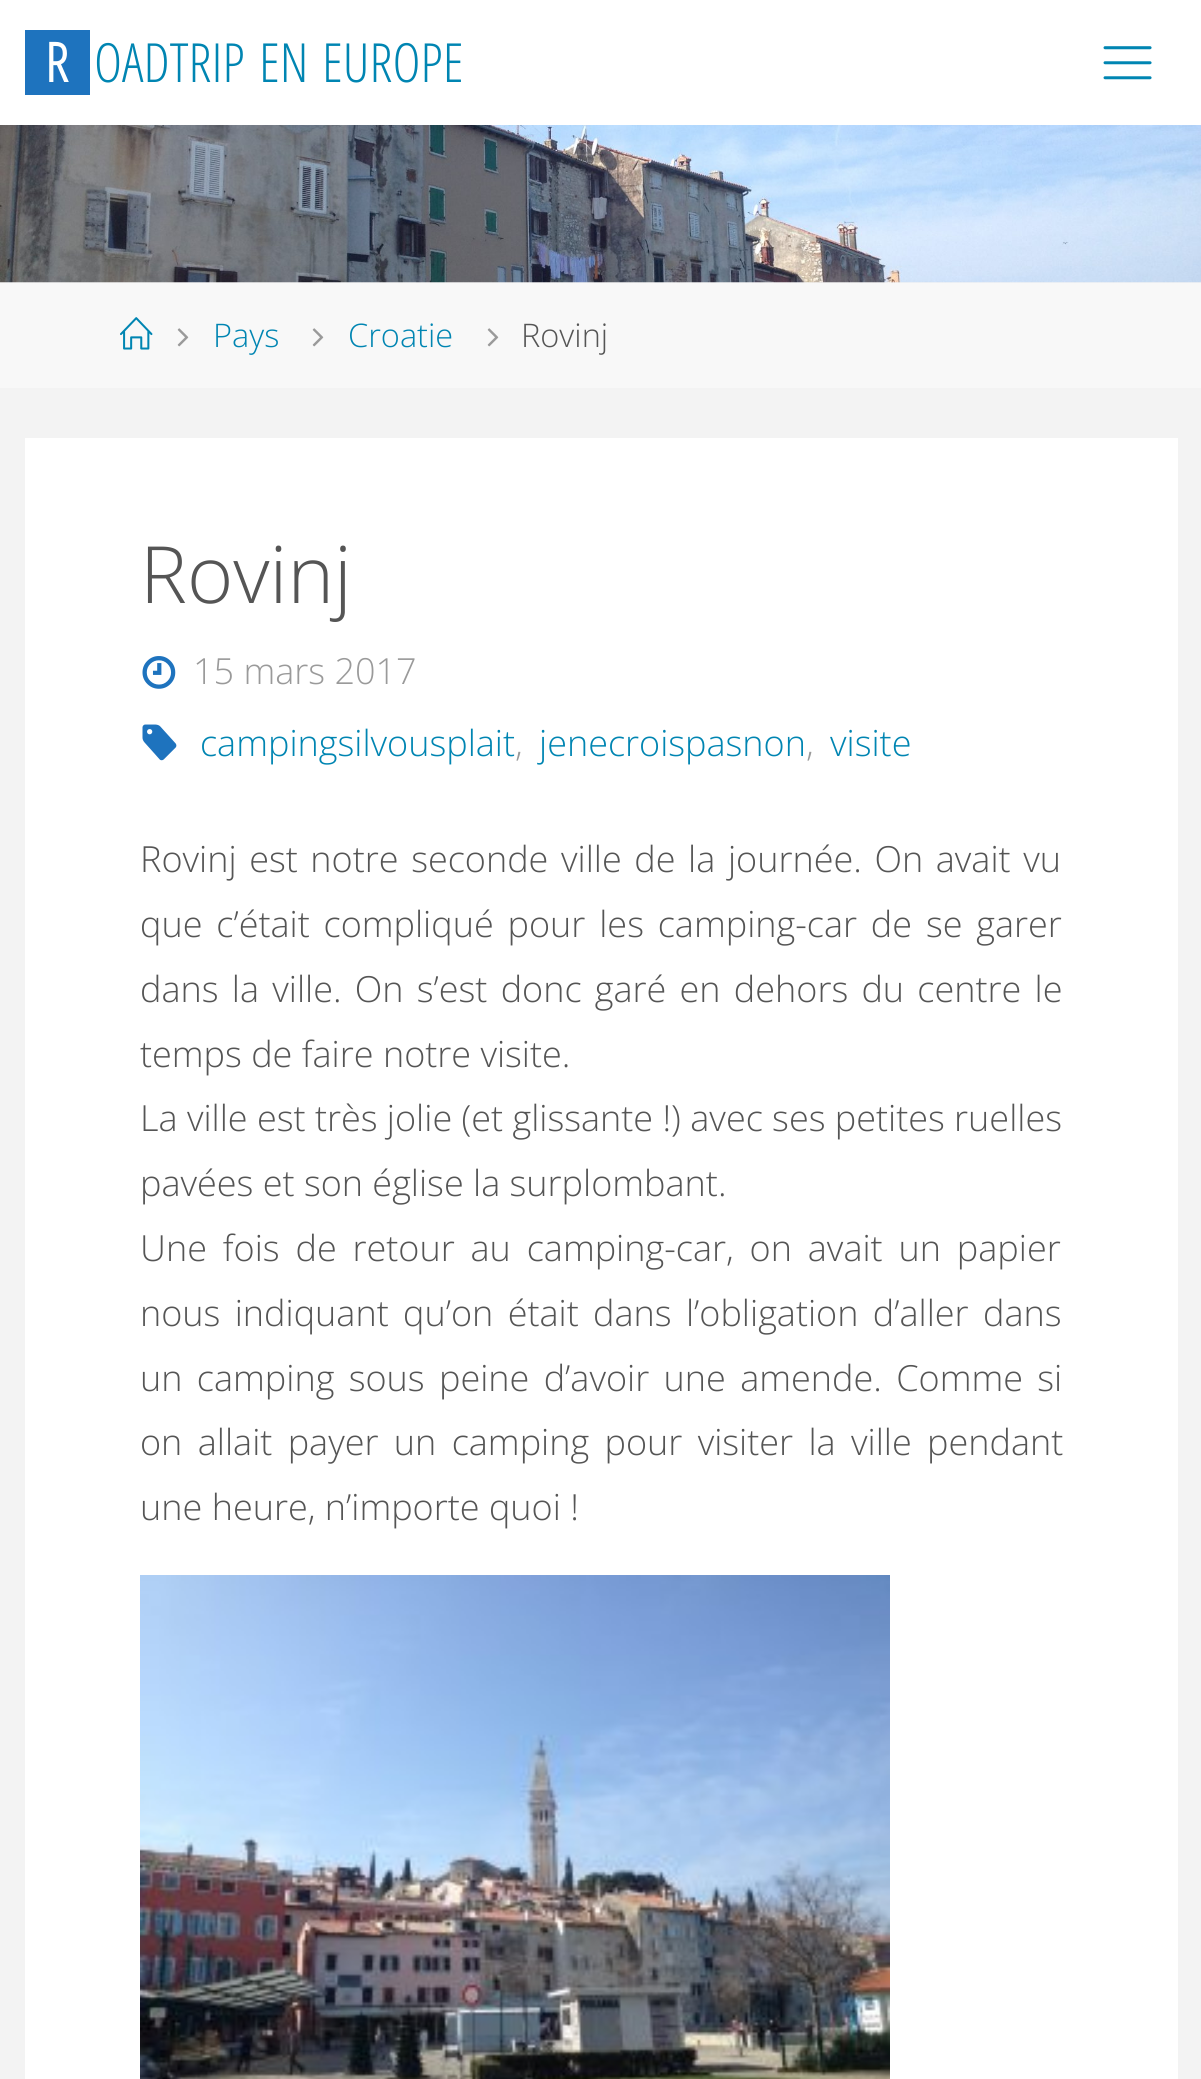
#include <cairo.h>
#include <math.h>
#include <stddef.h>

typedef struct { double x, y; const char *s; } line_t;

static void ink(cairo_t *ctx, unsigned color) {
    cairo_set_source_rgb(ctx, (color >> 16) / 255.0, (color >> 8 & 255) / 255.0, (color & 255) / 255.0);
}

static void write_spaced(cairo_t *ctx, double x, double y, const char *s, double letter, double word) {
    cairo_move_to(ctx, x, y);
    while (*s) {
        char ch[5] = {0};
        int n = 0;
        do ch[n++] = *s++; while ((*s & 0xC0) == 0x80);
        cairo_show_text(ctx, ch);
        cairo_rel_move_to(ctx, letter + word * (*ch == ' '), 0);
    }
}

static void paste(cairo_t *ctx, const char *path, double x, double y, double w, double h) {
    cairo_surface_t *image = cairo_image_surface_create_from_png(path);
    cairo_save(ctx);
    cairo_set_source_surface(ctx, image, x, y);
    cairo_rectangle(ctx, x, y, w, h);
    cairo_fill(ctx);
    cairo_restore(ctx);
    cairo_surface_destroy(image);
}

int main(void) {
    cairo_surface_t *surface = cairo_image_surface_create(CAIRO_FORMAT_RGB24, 1201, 2079);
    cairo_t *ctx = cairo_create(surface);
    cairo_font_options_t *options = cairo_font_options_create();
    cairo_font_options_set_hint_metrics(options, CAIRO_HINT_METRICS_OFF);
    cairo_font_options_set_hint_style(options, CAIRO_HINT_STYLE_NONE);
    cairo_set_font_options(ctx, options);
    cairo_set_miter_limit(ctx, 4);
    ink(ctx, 0xF3F3F3);
    cairo_paint(ctx);
    ink(ctx, 0xFFFFFF);
    cairo_rectangle(ctx, 0, 0, 1201, 125);
    cairo_fill(ctx);
    ink(ctx, 0x1E73BE);
    cairo_rectangle(ctx, 25, 30, 65, 65);
    cairo_fill(ctx);
    cairo_select_font_face(ctx, "Open Sans Condensed", CAIRO_FONT_SLANT_NORMAL, CAIRO_FONT_WEIGHT_BOLD);
    cairo_set_font_size(ctx, 54);
    ink(ctx, 0xFFFFFF);
    cairo_move_to(ctx, 45, 82);
    cairo_show_text(ctx, "R");
    cairo_select_font_face(ctx, "Open Sans Condensed Light", CAIRO_FONT_SLANT_NORMAL, CAIRO_FONT_WEIGHT_NORMAL);
    ink(ctx, 0x0085B2);
    {
        static const line_t items[] = {
            {94, 82, "OADTRIP"},
            {259, 82, "EN"},
            {322, 82, "EUROPE"},
        };
        for (size_t i = 0; i < sizeof items / sizeof *items; i++) {
            cairo_move_to(ctx, items[i].x, items[i].y);
            cairo_show_text(ctx, items[i].s);
        }
    }
    paste(ctx, "media/1.png", 1103, 46, 49, 34);
    paste(ctx, "media/2.png", 0, 125, 1201, 158);
    ink(ctx, 0xF8F8F8);
    cairo_rectangle(ctx, 0, 283, 1201, 105);
    cairo_fill(ctx);
    paste(ctx, "media/3.png", 120, 317, 33, 33);
    paste(ctx, "media/4.png", 177, 328, 12, 19);
    cairo_select_font_face(ctx, "Open Sans Light", CAIRO_FONT_SLANT_NORMAL, CAIRO_FONT_WEIGHT_NORMAL);
    cairo_set_font_size(ctx, 32.5);
    ink(ctx, 0x0085B2);
    cairo_move_to(ctx, 213, 347);
    cairo_show_text(ctx, "Pays");
    paste(ctx, "media/4.png", 312, 328, 12, 19);
    cairo_move_to(ctx, 348, 347);
    cairo_show_text(ctx, "Croatie");
    paste(ctx, "media/4.png", 487, 328, 12, 19);
    ink(ctx, 0x555555);
    cairo_move_to(ctx, 521, 347);
    cairo_show_text(ctx, "Rovinj");
    ink(ctx, 0xFFFFFF);
    cairo_rectangle(ctx, 25, 438, 1153, 1641);
    cairo_fill(ctx);
    cairo_set_font_size(ctx, 79);
    ink(ctx, 0x555555);
    cairo_move_to(ctx, 140, 603);
    cairo_show_text(ctx, "Rovinj");
    paste(ctx, "media/5.png", 142, 656, 34, 33);
    cairo_set_font_size(ctx, 36);
    ink(ctx, 0x9A9A9A);
    cairo_move_to(ctx, 193, 684);
    cairo_show_text(ctx, "15 mars 2017");
    paste(ctx, "media/6.png", 142, 724, 35, 37);
    ink(ctx, 0x0085B2);
    cairo_move_to(ctx, 200, 756);
    cairo_show_text(ctx, "campingsilvousplait");
    ink(ctx, 0x9A9A9A);
    cairo_move_to(ctx, 515, 756);
    cairo_show_text(ctx, ",");
    ink(ctx, 0x0085B2);
    cairo_move_to(ctx, 539, 756);
    cairo_show_text(ctx, "jenecroispasnon");
    ink(ctx, 0x9A9A9A);
    cairo_move_to(ctx, 806, 756);
    cairo_show_text(ctx, ",");
    ink(ctx, 0x0085B2);
    cairo_move_to(ctx, 830, 756);
    cairo_show_text(ctx, "visite");
    ink(ctx, 0x555555);
    write_spaced(ctx, 140, 872, "Rovinj est notre seconde ville de la journée. On avait vu", 0, 3.25);
    write_spaced(ctx, 140, 937, "que c’était compliqué pour les camping-car de se garer", 0, 4.5);
    write_spaced(ctx, 140, 1002, "dans la ville. On s’est donc garé en dehors du centre le", 0, 3.9);
    {
        static const line_t items[] = {
            {140, 1067, "temps de faire notre visite."},
            {140, 1131, "La ville est très jolie (et glissante !) avec ses petites ruelles"},
            {140, 1196, "pavées et son église la surplombant."},
        };
        for (size_t i = 0; i < sizeof items / sizeof *items; i++) {
            cairo_move_to(ctx, items[i].x, items[i].y);
            cairo_show_text(ctx, items[i].s);
        }
    }
    write_spaced(ctx, 140, 1261, "Une fois de retour au camping-car, on avait un papier", 0, 6.5);
    write_spaced(ctx, 140, 1326, "nous indiquant qu’on était dans l’obligation d’aller dans", 0, 5);
    write_spaced(ctx, 140, 1391, "un camping sous peine d’avoir une amende. Comme si", 0, 5);
    write_spaced(ctx, 140, 1455, "on allait payer un camping pour visiter la ville pendant", 0, 6);
    cairo_move_to(ctx, 140, 1520);
    cairo_show_text(ctx, "une heure, n’importe quoi !");
    paste(ctx, "media/7.png", 140, 1575, 750, 504);
    cairo_surface_write_to_png(surface, "image.png");
    cairo_font_options_destroy(options);
    cairo_destroy(ctx);
    cairo_surface_destroy(surface);
    return 0;
}
